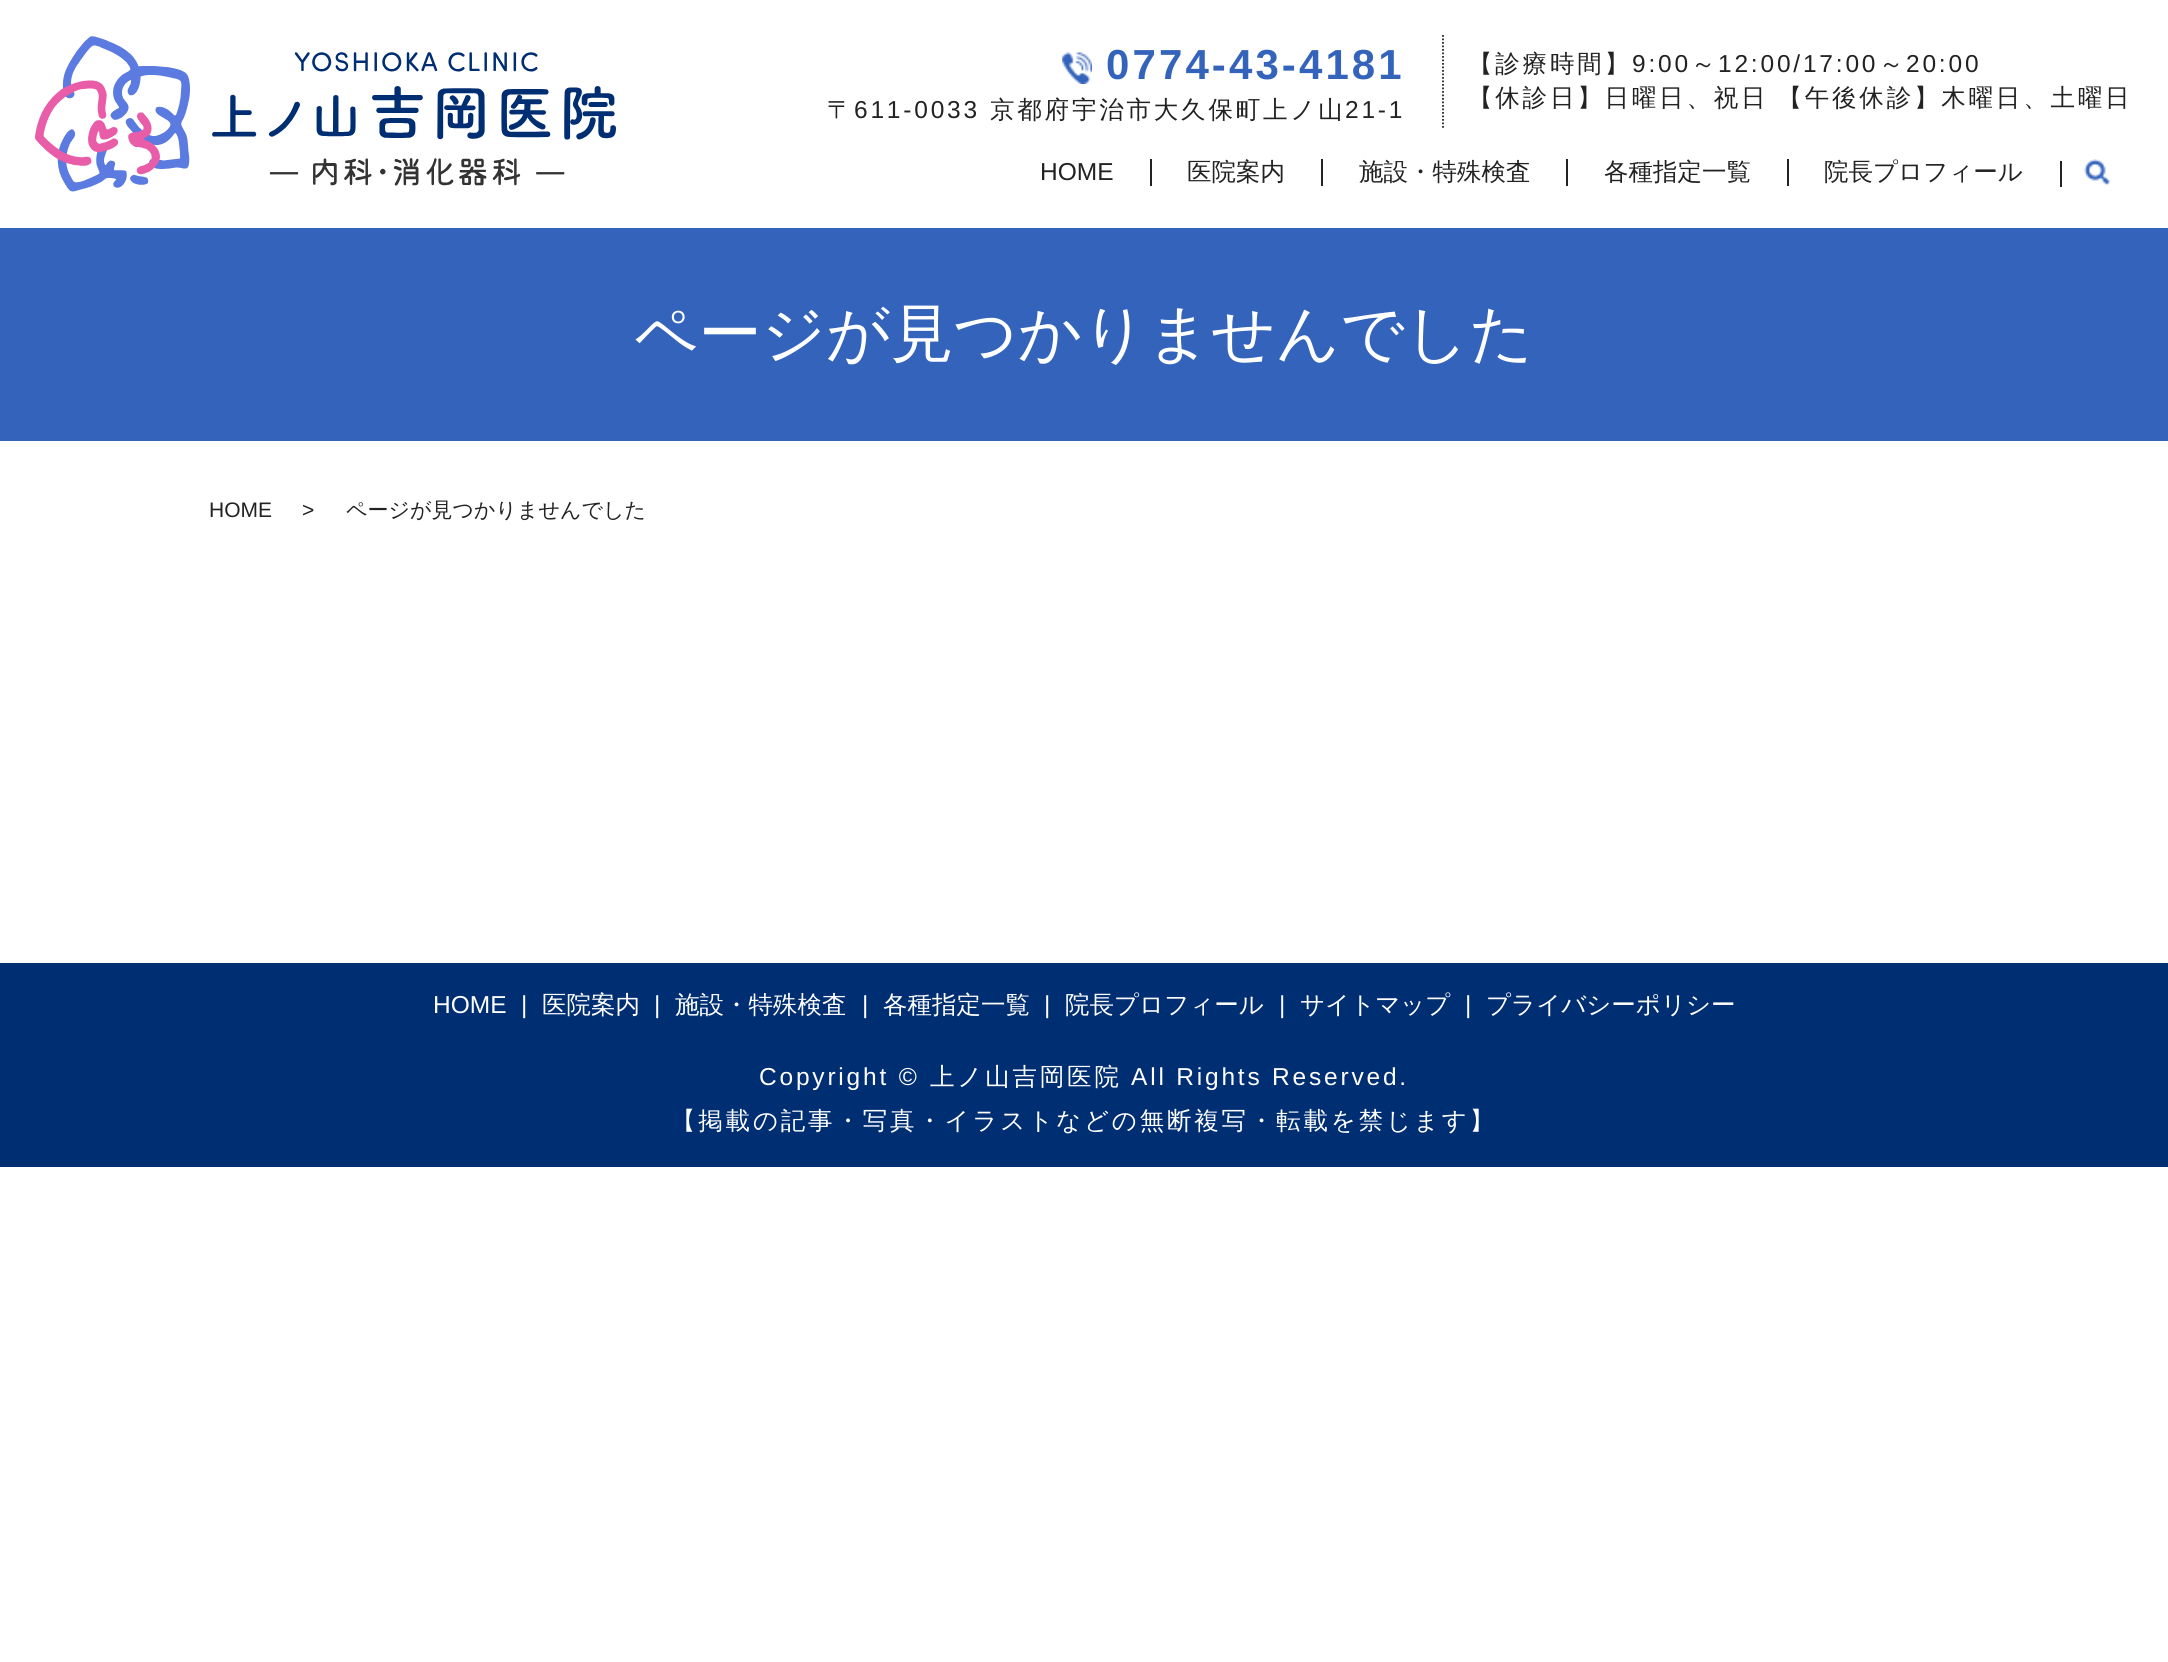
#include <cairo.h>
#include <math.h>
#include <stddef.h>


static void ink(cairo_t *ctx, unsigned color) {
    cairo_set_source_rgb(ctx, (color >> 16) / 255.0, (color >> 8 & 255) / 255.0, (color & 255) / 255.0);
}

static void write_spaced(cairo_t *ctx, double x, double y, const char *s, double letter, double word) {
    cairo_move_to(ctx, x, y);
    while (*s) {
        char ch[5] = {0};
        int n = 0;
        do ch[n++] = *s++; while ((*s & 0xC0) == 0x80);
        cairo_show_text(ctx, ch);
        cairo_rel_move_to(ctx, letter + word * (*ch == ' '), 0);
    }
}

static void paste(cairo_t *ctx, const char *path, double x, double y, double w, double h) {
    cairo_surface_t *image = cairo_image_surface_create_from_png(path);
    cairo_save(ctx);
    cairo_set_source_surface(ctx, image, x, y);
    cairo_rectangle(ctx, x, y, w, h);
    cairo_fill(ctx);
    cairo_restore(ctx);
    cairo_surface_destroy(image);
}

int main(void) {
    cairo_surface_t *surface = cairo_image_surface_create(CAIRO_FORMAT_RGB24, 2168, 1662);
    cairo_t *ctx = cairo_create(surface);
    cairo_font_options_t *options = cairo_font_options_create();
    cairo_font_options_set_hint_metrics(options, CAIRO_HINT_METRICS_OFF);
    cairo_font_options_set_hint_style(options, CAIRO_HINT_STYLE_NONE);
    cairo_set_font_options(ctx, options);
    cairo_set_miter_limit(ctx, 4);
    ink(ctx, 0xFFFFFF);
    cairo_paint(ctx);
    paste(ctx, "media/1.png", 35, 36, 581, 156);
    cairo_new_path(ctx);
    cairo_move_to(ctx, 1443, 35);
    cairo_line_to(ctx, 1443, 128);
    ink(ctx, 0x222222);
    cairo_set_line_width(ctx, 1.8);
    cairo_set_dash(ctx, (double[]){1.75, 1.75}, 2, 0);
    cairo_stroke(ctx);
    paste(ctx, "media/2.png", 1062, 52, 30, 32);
    cairo_select_font_face(ctx, "Liberation Sans", CAIRO_FONT_SLANT_NORMAL, CAIRO_FONT_WEIGHT_BOLD);
    cairo_set_font_size(ctx, 42);
    ink(ctx, 0x3363BB);
    write_spaced(ctx, 1106, 79, "0774-43-4181", 3.1, 0);
    cairo_select_font_face(ctx, "WenQuanYi Zen Hei Medium", CAIRO_FONT_SLANT_NORMAL, CAIRO_FONT_WEIGHT_NORMAL);
    cairo_set_font_size(ctx, 24.5);
    ink(ctx, 0x222222);
    write_spaced(ctx, 827, 118, "〒", 2.8, 0);
    cairo_select_font_face(ctx, "Liberation Sans", CAIRO_FONT_SLANT_NORMAL, CAIRO_FONT_WEIGHT_NORMAL);
    write_spaced(ctx, 854, 118, "611-0033", 2.8, 0);
    cairo_select_font_face(ctx, "WenQuanYi Zen Hei Medium", CAIRO_FONT_SLANT_NORMAL, CAIRO_FONT_WEIGHT_NORMAL);
    write_spaced(ctx, 990, 118, "京都府宇治市大久保町上ノ山", 2.8, 0);
    cairo_select_font_face(ctx, "Liberation Sans", CAIRO_FONT_SLANT_NORMAL, CAIRO_FONT_WEIGHT_NORMAL);
    write_spaced(ctx, 1345, 118, "21-1", 2.8, 0);
    cairo_select_font_face(ctx, "WenQuanYi Zen Hei Medium", CAIRO_FONT_SLANT_NORMAL, CAIRO_FONT_WEIGHT_NORMAL);
    write_spaced(ctx, 1468, 72, "【診療時間】", 2.8, 0);
    cairo_select_font_face(ctx, "Liberation Sans", CAIRO_FONT_SLANT_NORMAL, CAIRO_FONT_WEIGHT_NORMAL);
    write_spaced(ctx, 1632, 72, "9:00", 2.8, 0);
    cairo_select_font_face(ctx, "WenQuanYi Zen Hei Medium", CAIRO_FONT_SLANT_NORMAL, CAIRO_FONT_WEIGHT_NORMAL);
    write_spaced(ctx, 1691, 72, "～", 2.8, 0);
    cairo_select_font_face(ctx, "Liberation Sans", CAIRO_FONT_SLANT_NORMAL, CAIRO_FONT_WEIGHT_NORMAL);
    write_spaced(ctx, 1718, 72, "12:00/17:00", 2.8, 0);
    cairo_select_font_face(ctx, "WenQuanYi Zen Hei Medium", CAIRO_FONT_SLANT_NORMAL, CAIRO_FONT_WEIGHT_NORMAL);
    write_spaced(ctx, 1879, 72, "～", 2.8, 0);
    cairo_select_font_face(ctx, "Liberation Sans", CAIRO_FONT_SLANT_NORMAL, CAIRO_FONT_WEIGHT_NORMAL);
    write_spaced(ctx, 1906, 72, "20:00", 2.8, 0);
    cairo_select_font_face(ctx, "WenQuanYi Zen Hei Medium", CAIRO_FONT_SLANT_NORMAL, CAIRO_FONT_WEIGHT_NORMAL);
    write_spaced(ctx, 1468, 106, "【休診日】日曜日、祝日 【午後休診】木曜日、土曜日", 2.8, -1);
    cairo_select_font_face(ctx, "Liberation Sans", CAIRO_FONT_SLANT_NORMAL, CAIRO_FONT_WEIGHT_NORMAL);
    cairo_move_to(ctx, 1040, 180);
    cairo_show_text(ctx, "HOME");
    cairo_rectangle(ctx, 1150, 159, 2, 27);
    cairo_fill(ctx);
    cairo_select_font_face(ctx, "WenQuanYi Zen Hei Medium", CAIRO_FONT_SLANT_NORMAL, CAIRO_FONT_WEIGHT_NORMAL);
    cairo_move_to(ctx, 1187, 180);
    cairo_show_text(ctx, "医院案内");
    cairo_rectangle(ctx, 1321, 159, 2, 27);
    cairo_fill(ctx);
    cairo_move_to(ctx, 1359, 180);
    cairo_show_text(ctx, "施設・特殊検査");
    cairo_rectangle(ctx, 1566, 159, 2, 27);
    cairo_fill(ctx);
    cairo_move_to(ctx, 1604, 180);
    cairo_show_text(ctx, "各種指定一覧");
    cairo_rectangle(ctx, 1787, 159, 2, 27);
    cairo_fill(ctx);
    cairo_move_to(ctx, 1824, 180);
    cairo_show_text(ctx, "院長プロフィール");
    paste(ctx, "media/3.png", 2084, 159, 27, 27);
    cairo_rectangle(ctx, 2060, 161, 2, 26);
    cairo_fill(ctx);
    ink(ctx, 0x3363BB);
    cairo_rectangle(ctx, 0, 228, 2168, 213);
    cairo_fill(ctx);
    cairo_set_font_size(ctx, 63);
    ink(ctx, 0xFFFFFF);
    cairo_move_to(ctx, 634, 355);
    cairo_show_text(ctx, "ページが見つかりませんでした");
    cairo_select_font_face(ctx, "Liberation Sans", CAIRO_FONT_SLANT_NORMAL, CAIRO_FONT_WEIGHT_NORMAL);
    cairo_set_font_size(ctx, 21);
    ink(ctx, 0x222222);
    cairo_move_to(ctx, 209, 517);
    cairo_show_text(ctx, "HOME");
    cairo_move_to(ctx, 302, 517);
    cairo_show_text(ctx, ">");
    cairo_select_font_face(ctx, "WenQuanYi Zen Hei Medium", CAIRO_FONT_SLANT_NORMAL, CAIRO_FONT_WEIGHT_NORMAL);
    cairo_move_to(ctx, 346, 517);
    cairo_show_text(ctx, "ページが見つかりませんでした");
    ink(ctx, 0x002E73);
    cairo_rectangle(ctx, 0, 963, 2168, 204);
    cairo_fill(ctx);
    cairo_select_font_face(ctx, "Liberation Sans", CAIRO_FONT_SLANT_NORMAL, CAIRO_FONT_WEIGHT_NORMAL);
    cairo_set_font_size(ctx, 24.5);
    ink(ctx, 0xFFFFFF);
    cairo_move_to(ctx, 433, 1013);
    cairo_show_text(ctx, "HOME");
    cairo_move_to(ctx, 521, 1013);
    cairo_show_text(ctx, "|");
    cairo_select_font_face(ctx, "WenQuanYi Zen Hei Medium", CAIRO_FONT_SLANT_NORMAL, CAIRO_FONT_WEIGHT_NORMAL);
    cairo_move_to(ctx, 542, 1013);
    cairo_show_text(ctx, "医院案内");
    cairo_select_font_face(ctx, "Liberation Sans", CAIRO_FONT_SLANT_NORMAL, CAIRO_FONT_WEIGHT_NORMAL);
    cairo_move_to(ctx, 654, 1013);
    cairo_show_text(ctx, "|");
    cairo_select_font_face(ctx, "WenQuanYi Zen Hei Medium", CAIRO_FONT_SLANT_NORMAL, CAIRO_FONT_WEIGHT_NORMAL);
    cairo_move_to(ctx, 675, 1013);
    cairo_show_text(ctx, "施設・特殊検査");
    cairo_select_font_face(ctx, "Liberation Sans", CAIRO_FONT_SLANT_NORMAL, CAIRO_FONT_WEIGHT_NORMAL);
    cairo_move_to(ctx, 862, 1013);
    cairo_show_text(ctx, "|");
    cairo_select_font_face(ctx, "WenQuanYi Zen Hei Medium", CAIRO_FONT_SLANT_NORMAL, CAIRO_FONT_WEIGHT_NORMAL);
    cairo_move_to(ctx, 883, 1013);
    cairo_show_text(ctx, "各種指定一覧");
    cairo_select_font_face(ctx, "Liberation Sans", CAIRO_FONT_SLANT_NORMAL, CAIRO_FONT_WEIGHT_NORMAL);
    cairo_move_to(ctx, 1044, 1013);
    cairo_show_text(ctx, "|");
    cairo_select_font_face(ctx, "WenQuanYi Zen Hei Medium", CAIRO_FONT_SLANT_NORMAL, CAIRO_FONT_WEIGHT_NORMAL);
    cairo_move_to(ctx, 1065, 1013);
    cairo_show_text(ctx, "院長プロフィール");
    cairo_select_font_face(ctx, "Liberation Sans", CAIRO_FONT_SLANT_NORMAL, CAIRO_FONT_WEIGHT_NORMAL);
    cairo_move_to(ctx, 1279, 1013);
    cairo_show_text(ctx, "|");
    cairo_select_font_face(ctx, "WenQuanYi Zen Hei Medium", CAIRO_FONT_SLANT_NORMAL, CAIRO_FONT_WEIGHT_NORMAL);
    cairo_move_to(ctx, 1300, 1013);
    cairo_show_text(ctx, "サイトマップ");
    cairo_select_font_face(ctx, "Liberation Sans", CAIRO_FONT_SLANT_NORMAL, CAIRO_FONT_WEIGHT_NORMAL);
    cairo_move_to(ctx, 1465, 1013);
    cairo_show_text(ctx, "|");
    cairo_select_font_face(ctx, "WenQuanYi Zen Hei Medium", CAIRO_FONT_SLANT_NORMAL, CAIRO_FONT_WEIGHT_NORMAL);
    cairo_move_to(ctx, 1486, 1013);
    cairo_show_text(ctx, "プライバシーポリシー");
    cairo_select_font_face(ctx, "Liberation Sans", CAIRO_FONT_SLANT_NORMAL, CAIRO_FONT_WEIGHT_NORMAL);
    write_spaced(ctx, 759, 1085, "Copyright ©", 2.8, 0);
    cairo_select_font_face(ctx, "WenQuanYi Zen Hei Medium", CAIRO_FONT_SLANT_NORMAL, CAIRO_FONT_WEIGHT_NORMAL);
    write_spaced(ctx, 930, 1085, "上ノ山吉岡医院", 2.8, 0);
    cairo_select_font_face(ctx, "Liberation Sans", CAIRO_FONT_SLANT_NORMAL, CAIRO_FONT_WEIGHT_NORMAL);
    write_spaced(ctx, 1131, 1085, "All Rights Reserved.", 2.8, 0);
    cairo_select_font_face(ctx, "WenQuanYi Zen Hei Medium", CAIRO_FONT_SLANT_NORMAL, CAIRO_FONT_WEIGHT_NORMAL);
    write_spaced(ctx, 671, 1129, "【掲載の記事・写真・イラストなどの無断複写・転載を禁じます】", 2.8, 0);
    cairo_surface_write_to_png(surface, "image.png");
    cairo_font_options_destroy(options);
    cairo_destroy(ctx);
    cairo_surface_destroy(surface);
    return 0;
}
